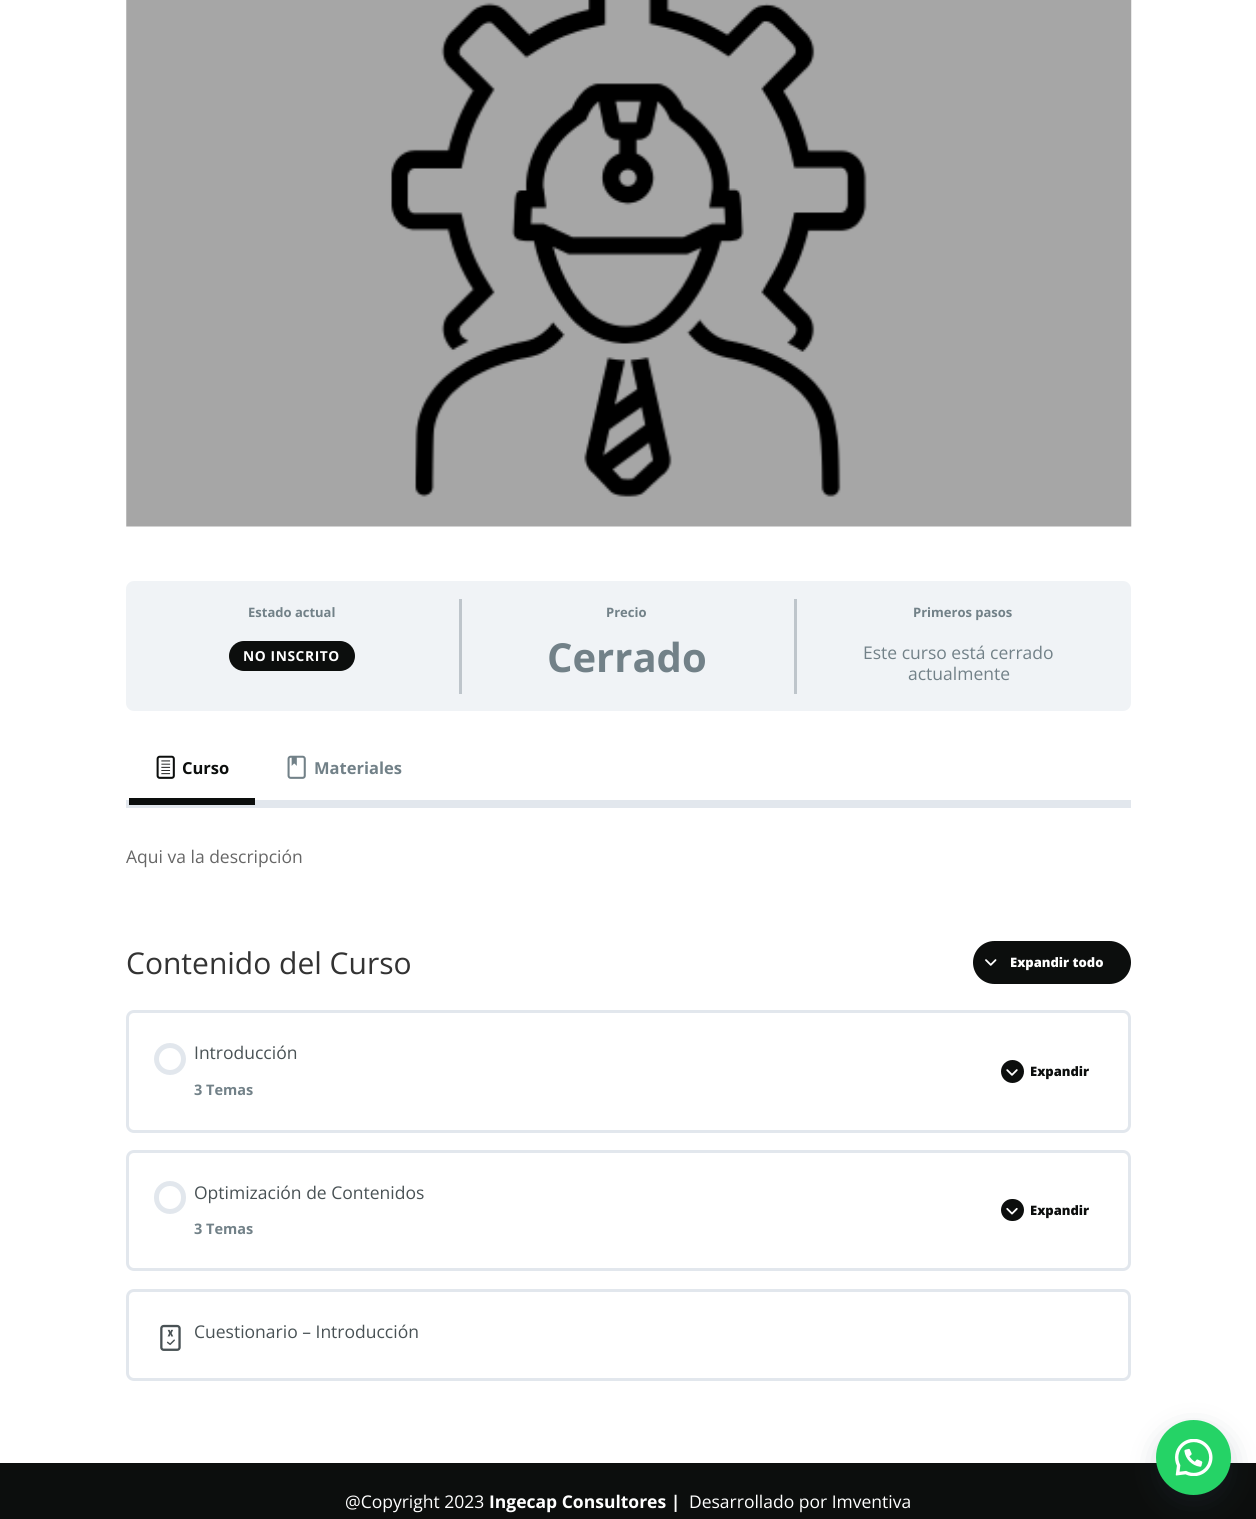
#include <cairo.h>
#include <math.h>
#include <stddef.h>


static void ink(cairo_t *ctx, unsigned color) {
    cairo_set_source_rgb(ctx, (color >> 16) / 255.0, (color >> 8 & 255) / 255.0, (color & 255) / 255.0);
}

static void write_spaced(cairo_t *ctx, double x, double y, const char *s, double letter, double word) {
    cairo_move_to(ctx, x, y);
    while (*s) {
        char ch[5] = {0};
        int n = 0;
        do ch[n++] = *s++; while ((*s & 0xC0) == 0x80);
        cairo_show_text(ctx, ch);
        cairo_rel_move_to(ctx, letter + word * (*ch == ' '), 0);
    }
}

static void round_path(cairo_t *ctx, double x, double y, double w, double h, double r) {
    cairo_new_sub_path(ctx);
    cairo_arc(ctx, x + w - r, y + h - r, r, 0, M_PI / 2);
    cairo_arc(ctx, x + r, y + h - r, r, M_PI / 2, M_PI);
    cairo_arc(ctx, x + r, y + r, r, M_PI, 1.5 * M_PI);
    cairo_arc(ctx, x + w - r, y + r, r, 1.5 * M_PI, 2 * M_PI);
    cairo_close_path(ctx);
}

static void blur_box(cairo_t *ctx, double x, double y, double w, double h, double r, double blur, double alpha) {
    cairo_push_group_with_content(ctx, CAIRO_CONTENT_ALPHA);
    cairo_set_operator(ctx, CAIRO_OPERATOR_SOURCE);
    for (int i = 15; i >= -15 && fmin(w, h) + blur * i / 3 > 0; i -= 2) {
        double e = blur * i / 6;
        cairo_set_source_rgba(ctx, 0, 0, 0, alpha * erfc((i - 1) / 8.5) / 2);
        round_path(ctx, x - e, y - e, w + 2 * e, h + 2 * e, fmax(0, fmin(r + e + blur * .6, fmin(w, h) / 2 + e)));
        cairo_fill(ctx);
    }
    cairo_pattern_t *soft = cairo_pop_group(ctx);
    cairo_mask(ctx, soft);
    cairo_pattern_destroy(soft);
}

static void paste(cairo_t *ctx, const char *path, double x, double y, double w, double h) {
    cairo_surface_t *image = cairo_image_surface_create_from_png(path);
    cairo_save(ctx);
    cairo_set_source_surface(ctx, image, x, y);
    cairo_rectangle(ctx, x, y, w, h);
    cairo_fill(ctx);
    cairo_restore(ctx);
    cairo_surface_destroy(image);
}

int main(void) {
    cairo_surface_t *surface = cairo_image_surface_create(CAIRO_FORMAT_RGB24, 1256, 1519);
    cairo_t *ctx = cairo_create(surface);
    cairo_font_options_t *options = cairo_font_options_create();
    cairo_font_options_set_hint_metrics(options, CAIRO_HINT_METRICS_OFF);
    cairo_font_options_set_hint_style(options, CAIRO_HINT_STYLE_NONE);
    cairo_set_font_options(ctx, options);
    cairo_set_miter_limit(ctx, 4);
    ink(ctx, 0xFFFFFF);
    cairo_paint(ctx);
    paste(ctx, "media/1.png", 126, 0, 1006, 527);
    ink(ctx, 0xF0F3F6);
    round_path(ctx, 126, 581, 1005, 130, 8);
    cairo_fill(ctx);
    ink(ctx, 0xBEC5CB);
    cairo_rectangle(ctx, 459, 599, 3, 95);
    cairo_fill(ctx);
    cairo_select_font_face(ctx, "Open Sans", CAIRO_FONT_SLANT_NORMAL, CAIRO_FONT_WEIGHT_BOLD);
    cairo_set_font_size(ctx, 13);
    ink(ctx, 0x728188);
    cairo_move_to(ctx, 248, 617);
    cairo_show_text(ctx, "Estado actual");
    ink(ctx, 0x0C0E0D);
    round_path(ctx, 229, 641, 126, 30, 15);
    cairo_fill(ctx);
    cairo_set_font_size(ctx, 13.75);
    ink(ctx, 0xFFFFFF);
    write_spaced(ctx, 243, 661, "NO INSCRITO", 0.6, 0);
    ink(ctx, 0xBEC5CB);
    cairo_rectangle(ctx, 794, 599, 3, 95);
    cairo_fill(ctx);
    cairo_set_font_size(ctx, 13);
    ink(ctx, 0x728188);
    cairo_move_to(ctx, 606, 617);
    cairo_show_text(ctx, "Precio");
    cairo_set_font_size(ctx, 40);
    cairo_move_to(ctx, 547, 672);
    cairo_show_text(ctx, "Cerrado");
    cairo_set_font_size(ctx, 13);
    cairo_move_to(ctx, 913, 617);
    cairo_show_text(ctx, "Primeros pasos");
    cairo_select_font_face(ctx, "Open Sans", CAIRO_FONT_SLANT_NORMAL, CAIRO_FONT_WEIGHT_NORMAL);
    cairo_set_font_size(ctx, 17.5);
    cairo_move_to(ctx, 863, 659);
    cairo_show_text(ctx, "Este curso está cerrado");
    cairo_move_to(ctx, 908, 680);
    cairo_show_text(ctx, "actualmente");
    paste(ctx, "media/2.png", 156, 755, 19, 24);
    cairo_select_font_face(ctx, "Open Sans", CAIRO_FONT_SLANT_NORMAL, CAIRO_FONT_WEIGHT_BOLD);
    cairo_set_font_size(ctx, 16.5);
    ink(ctx, 0x0C0E0D);
    cairo_move_to(ctx, 182, 774);
    cairo_show_text(ctx, "Curso");
    ink(ctx, 0xE2E7ED);
    cairo_rectangle(ctx, 126, 800, 1005, 8);
    cairo_fill(ctx);
    ink(ctx, 0x0C0E0D);
    cairo_rectangle(ctx, 129, 798, 126, 7);
    cairo_fill(ctx);
    paste(ctx, "media/3.png", 287, 755, 19, 24);
    ink(ctx, 0x728188);
    cairo_move_to(ctx, 314, 774);
    cairo_show_text(ctx, "Materiales");
    cairo_select_font_face(ctx, "Open Sans", CAIRO_FONT_SLANT_NORMAL, CAIRO_FONT_WEIGHT_NORMAL);
    cairo_set_font_size(ctx, 17.5);
    ink(ctx, 0x666666);
    cairo_move_to(ctx, 126, 863);
    cairo_show_text(ctx, "Aqui va la descripción");
    cairo_set_font_size(ctx, 30);
    ink(ctx, 0x333333);
    cairo_move_to(ctx, 126, 974);
    cairo_show_text(ctx, "Contenido del Curso");
    ink(ctx, 0x0C0E0D);
    round_path(ctx, 973, 941, 158, 43, 21.5);
    cairo_fill(ctx);
    paste(ctx, "media/4.png", 985, 959, 12, 7);
    cairo_select_font_face(ctx, "Open Sans ExtraBold", CAIRO_FONT_SLANT_NORMAL, CAIRO_FONT_WEIGHT_NORMAL);
    cairo_set_font_size(ctx, 13);
    ink(ctx, 0xFFFFFF);
    cairo_move_to(ctx, 1010, 967);
    cairo_show_text(ctx, "Expandir todo");
    round_path(ctx, 127.5, 1011.5, 1002, 120, 6.5);
    ink(ctx, 0xE2E7ED);
    cairo_set_line_width(ctx, 3);
    cairo_stroke(ctx);
    cairo_arc(ctx, 170, 1059, 13.5, 0, 2 * M_PI);
    cairo_set_line_width(ctx, 5);
    cairo_stroke(ctx);
    cairo_select_font_face(ctx, "Open Sans", CAIRO_FONT_SLANT_NORMAL, CAIRO_FONT_WEIGHT_NORMAL);
    cairo_set_font_size(ctx, 17.5);
    ink(ctx, 0x495255);
    cairo_move_to(ctx, 194, 1059);
    cairo_show_text(ctx, "Introducción");
    cairo_select_font_face(ctx, "Open Sans", CAIRO_FONT_SLANT_NORMAL, CAIRO_FONT_WEIGHT_BOLD);
    cairo_set_font_size(ctx, 14.5);
    ink(ctx, 0x728188);
    cairo_move_to(ctx, 194, 1095);
    cairo_show_text(ctx, "3 Temas");
    ink(ctx, 0x0C0E0D);
    cairo_new_path(ctx);
    cairo_arc(ctx, 1012.5, 1071.5, 11.5, 0, 2 * M_PI);
    cairo_fill(ctx);
    paste(ctx, "media/5.png", 1006, 1069, 12, 7);
    cairo_select_font_face(ctx, "Open Sans ExtraBold", CAIRO_FONT_SLANT_NORMAL, CAIRO_FONT_WEIGHT_NORMAL);
    cairo_set_font_size(ctx, 13);
    cairo_move_to(ctx, 1030, 1076);
    cairo_show_text(ctx, "Expandir");
    round_path(ctx, 127.5, 1151.5, 1002, 118, 6.5);
    ink(ctx, 0xE2E7ED);
    cairo_set_line_width(ctx, 3);
    cairo_stroke(ctx);
    round_path(ctx, 156.5, 1183.5, 27, 28, 13.5);
    cairo_set_line_width(ctx, 5);
    cairo_stroke(ctx);
    cairo_select_font_face(ctx, "Open Sans", CAIRO_FONT_SLANT_NORMAL, CAIRO_FONT_WEIGHT_NORMAL);
    cairo_set_font_size(ctx, 17.5);
    ink(ctx, 0x495255);
    cairo_move_to(ctx, 194, 1199);
    cairo_show_text(ctx, "Optimización de Contenidos");
    cairo_select_font_face(ctx, "Open Sans", CAIRO_FONT_SLANT_NORMAL, CAIRO_FONT_WEIGHT_BOLD);
    cairo_set_font_size(ctx, 14.5);
    ink(ctx, 0x728188);
    cairo_move_to(ctx, 194, 1234);
    cairo_show_text(ctx, "3 Temas");
    ink(ctx, 0x0C0E0D);
    round_path(ctx, 1001, 1199, 23, 22, 11);
    cairo_fill(ctx);
    paste(ctx, "media/6.png", 1006, 1207, 12, 8);
    cairo_select_font_face(ctx, "Open Sans ExtraBold", CAIRO_FONT_SLANT_NORMAL, CAIRO_FONT_WEIGHT_NORMAL);
    cairo_set_font_size(ctx, 13);
    cairo_move_to(ctx, 1030, 1215);
    cairo_show_text(ctx, "Expandir");
    round_path(ctx, 127.5, 1290.5, 1002, 89, 6.5);
    ink(ctx, 0xE2E7ED);
    cairo_set_line_width(ctx, 3);
    cairo_stroke(ctx);
    paste(ctx, "media/7.png", 160, 1324, 21, 27);
    cairo_select_font_face(ctx, "Open Sans", CAIRO_FONT_SLANT_NORMAL, CAIRO_FONT_WEIGHT_NORMAL);
    cairo_set_font_size(ctx, 17.5);
    ink(ctx, 0x495255);
    cairo_move_to(ctx, 194, 1338);
    cairo_show_text(ctx, "Cuestionario – Introducción");
    ink(ctx, 0x0C0E0D);
    cairo_rectangle(ctx, 0, 1463, 1256, 56);
    cairo_fill(ctx);
    ink(ctx, 0xFFFFFF);
    cairo_move_to(ctx, 345, 1508);
    cairo_show_text(ctx, "@Copyright 2023");
    cairo_select_font_face(ctx, "Open Sans", CAIRO_FONT_SLANT_NORMAL, CAIRO_FONT_WEIGHT_BOLD);
    cairo_move_to(ctx, 489, 1508);
    cairo_show_text(ctx, "Ingecap Consultores |");
    cairo_select_font_face(ctx, "Open Sans", CAIRO_FONT_SLANT_NORMAL, CAIRO_FONT_WEIGHT_NORMAL);
    cairo_move_to(ctx, 689, 1508);
    cairo_show_text(ctx, "Desarrollado por Imventiva");
    ink(ctx, 0x2D3E4F);
    blur_box(ctx, 1163, 1436, 62, 63, 31, 15.5, 0.3);
    ink(ctx, 0x25D366);
    cairo_arc(ctx, 1193.5, 1457.5, 37.5, 0, 2 * M_PI);
    cairo_fill(ctx);
    paste(ctx, "media/8.png", 1175, 1439, 38, 37);
    cairo_surface_write_to_png(surface, "image.png");
    cairo_font_options_destroy(options);
    cairo_destroy(ctx);
    cairo_surface_destroy(surface);
    return 0;
}
